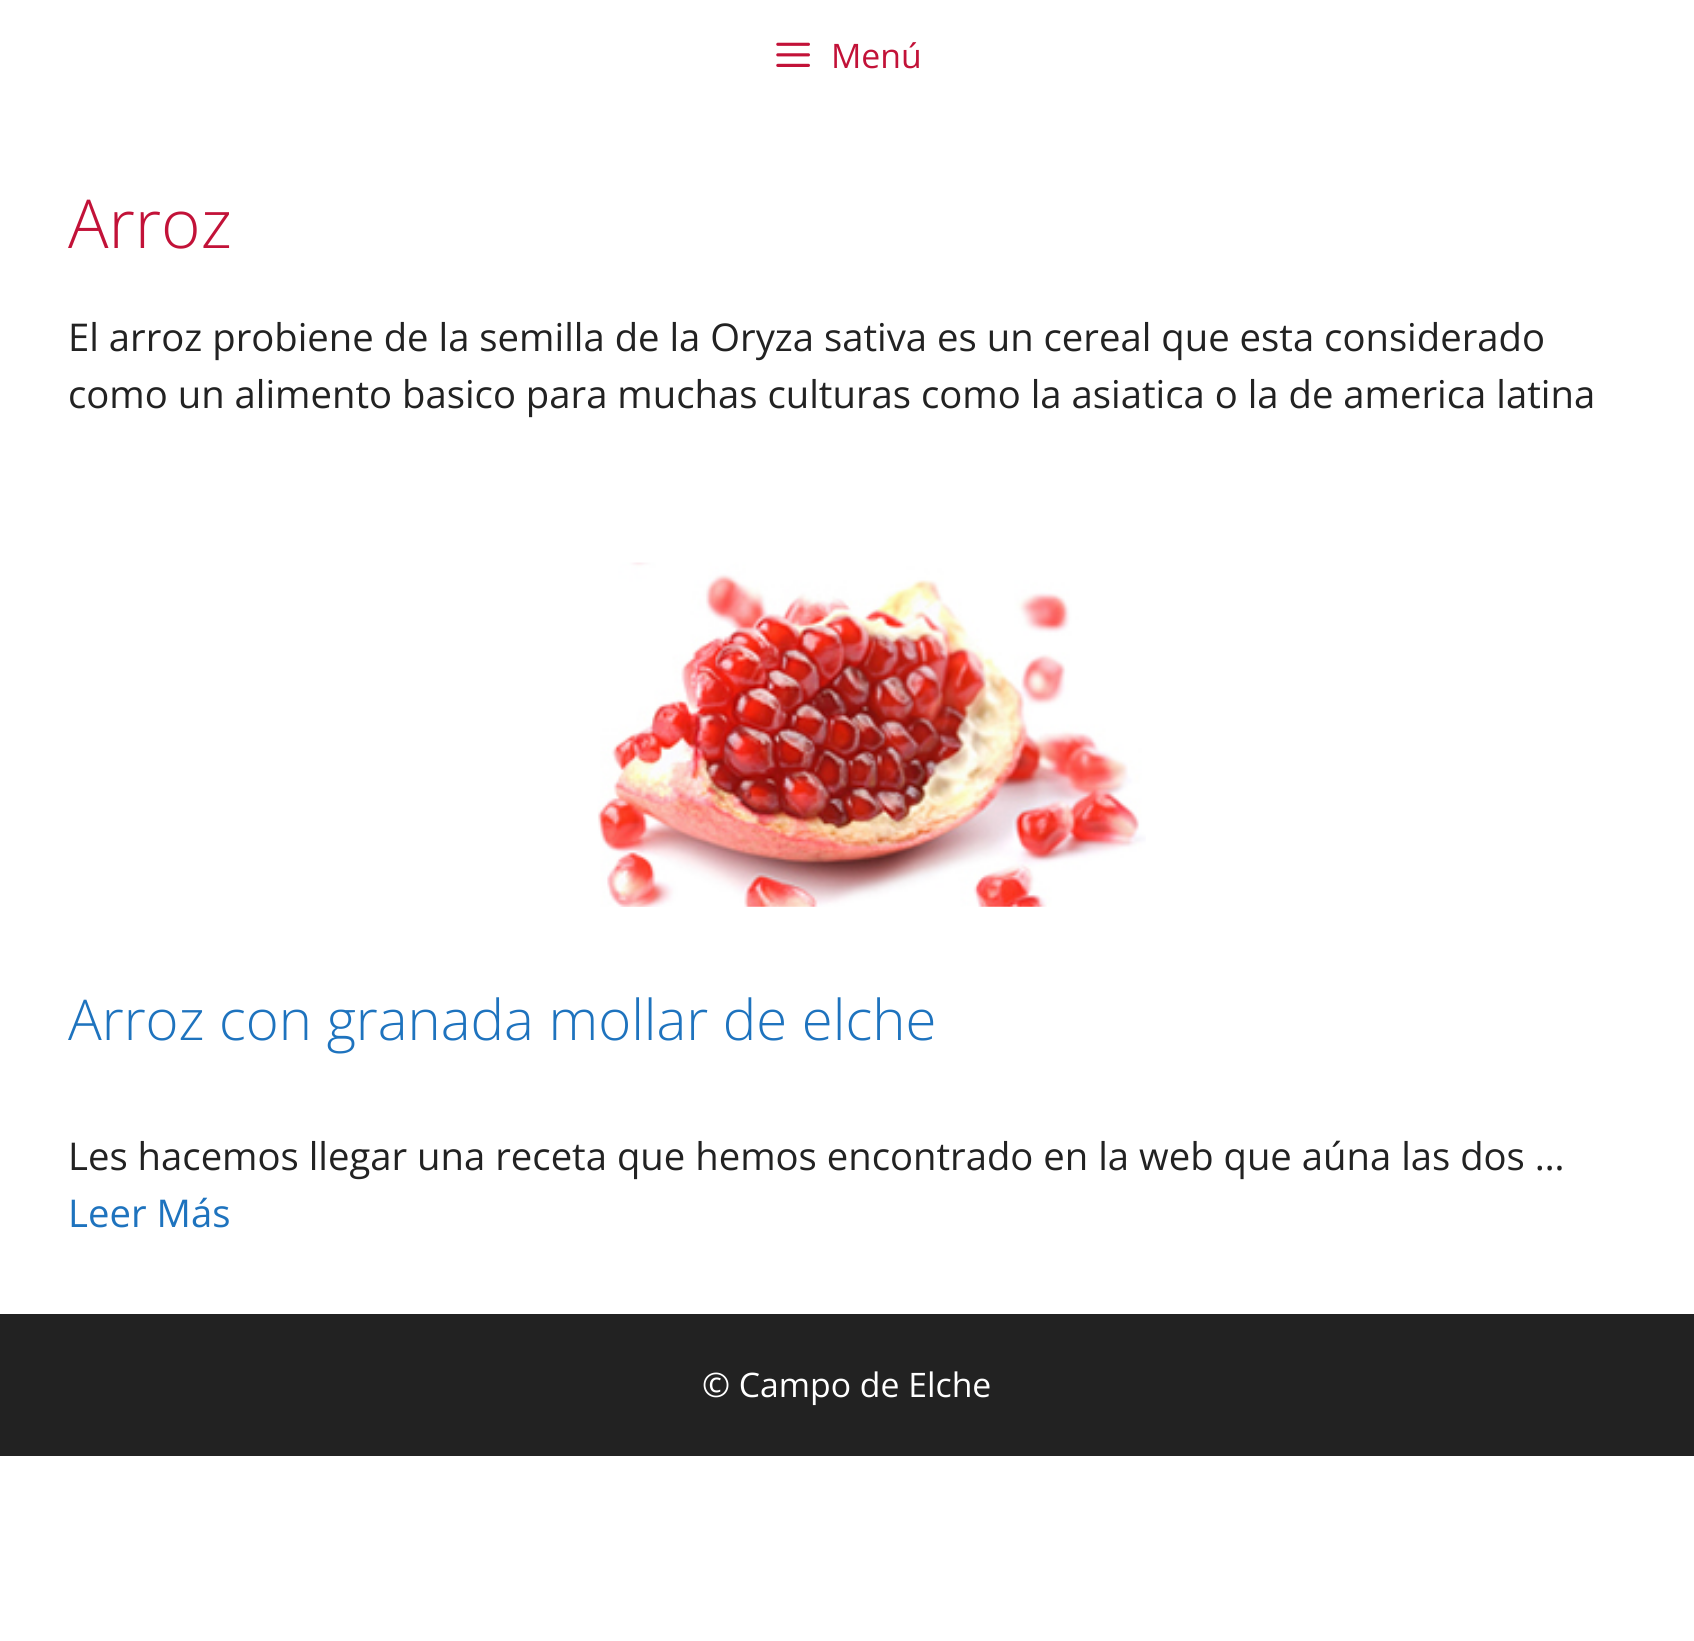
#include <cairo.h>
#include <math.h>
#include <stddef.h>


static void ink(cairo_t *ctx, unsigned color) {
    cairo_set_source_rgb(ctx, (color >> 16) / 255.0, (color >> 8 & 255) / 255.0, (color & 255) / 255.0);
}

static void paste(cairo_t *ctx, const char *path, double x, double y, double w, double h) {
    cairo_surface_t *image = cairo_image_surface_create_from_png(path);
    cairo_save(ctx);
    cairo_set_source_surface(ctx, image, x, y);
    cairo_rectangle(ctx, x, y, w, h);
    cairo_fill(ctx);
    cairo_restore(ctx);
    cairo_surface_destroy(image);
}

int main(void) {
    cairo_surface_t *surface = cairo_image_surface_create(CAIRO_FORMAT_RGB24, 1694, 1641);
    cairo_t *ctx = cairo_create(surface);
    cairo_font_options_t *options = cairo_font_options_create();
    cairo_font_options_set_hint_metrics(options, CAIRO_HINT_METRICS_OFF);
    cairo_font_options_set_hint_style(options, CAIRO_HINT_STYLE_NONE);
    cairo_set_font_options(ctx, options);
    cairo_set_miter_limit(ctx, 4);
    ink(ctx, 0xFFFFFF);
    cairo_paint(ctx);
    paste(ctx, "media/1.png", 776, 42, 34, 25);
    cairo_select_font_face(ctx, "Open Sans", CAIRO_FONT_SLANT_NORMAL, CAIRO_FONT_WEIGHT_NORMAL);
    cairo_set_font_size(ctx, 33.75);
    ink(ctx, 0xC21238);
    cairo_move_to(ctx, 831, 68);
    cairo_show_text(ctx, "Menú");
    cairo_select_font_face(ctx, "Open Sans Light", CAIRO_FONT_SLANT_NORMAL, CAIRO_FONT_WEIGHT_NORMAL);
    cairo_set_font_size(ctx, 67.5);
    cairo_move_to(ctx, 68, 248);
    cairo_show_text(ctx, "Arroz");
    cairo_select_font_face(ctx, "Open Sans", CAIRO_FONT_SLANT_NORMAL, CAIRO_FONT_WEIGHT_NORMAL);
    cairo_set_font_size(ctx, 38.25);
    ink(ctx, 0x222222);
    cairo_move_to(ctx, 68, 351);
    cairo_show_text(ctx, "El arroz probiene de la semilla de la Oryza sativa es un cereal que esta considerado");
    cairo_move_to(ctx, 68, 408);
    cairo_show_text(ctx, "como un alimento basico para muchas culturas como la asiatica o la de america latina");
    paste(ctx, "media/2.png", 597, 562, 549, 345);
    cairo_select_font_face(ctx, "Open Sans Light", CAIRO_FONT_SLANT_NORMAL, CAIRO_FONT_WEIGHT_NORMAL);
    cairo_set_font_size(ctx, 56.25);
    ink(ctx, 0x1E73BE);
    cairo_move_to(ctx, 68, 1040);
    cairo_show_text(ctx, "Arroz con granada mollar de elche");
    cairo_select_font_face(ctx, "Open Sans", CAIRO_FONT_SLANT_NORMAL, CAIRO_FONT_WEIGHT_NORMAL);
    cairo_set_font_size(ctx, 38.25);
    ink(ctx, 0x222222);
    cairo_move_to(ctx, 68, 1170);
    cairo_show_text(ctx, "Les hacemos llegar una receta que hemos encontrado en la web que aúna las dos …");
    ink(ctx, 0x1E73BE);
    cairo_move_to(ctx, 68, 1227);
    cairo_show_text(ctx, "Leer Más");
    ink(ctx, 0x222222);
    cairo_rectangle(ctx, 0, 1314, 1694, 142);
    cairo_fill(ctx);
    cairo_set_font_size(ctx, 33.75);
    ink(ctx, 0xFFFFFF);
    cairo_move_to(ctx, 702, 1397);
    cairo_show_text(ctx, "© Campo de Elche");
    cairo_surface_write_to_png(surface, "image.png");
    cairo_font_options_destroy(options);
    cairo_destroy(ctx);
    cairo_surface_destroy(surface);
    return 0;
}
